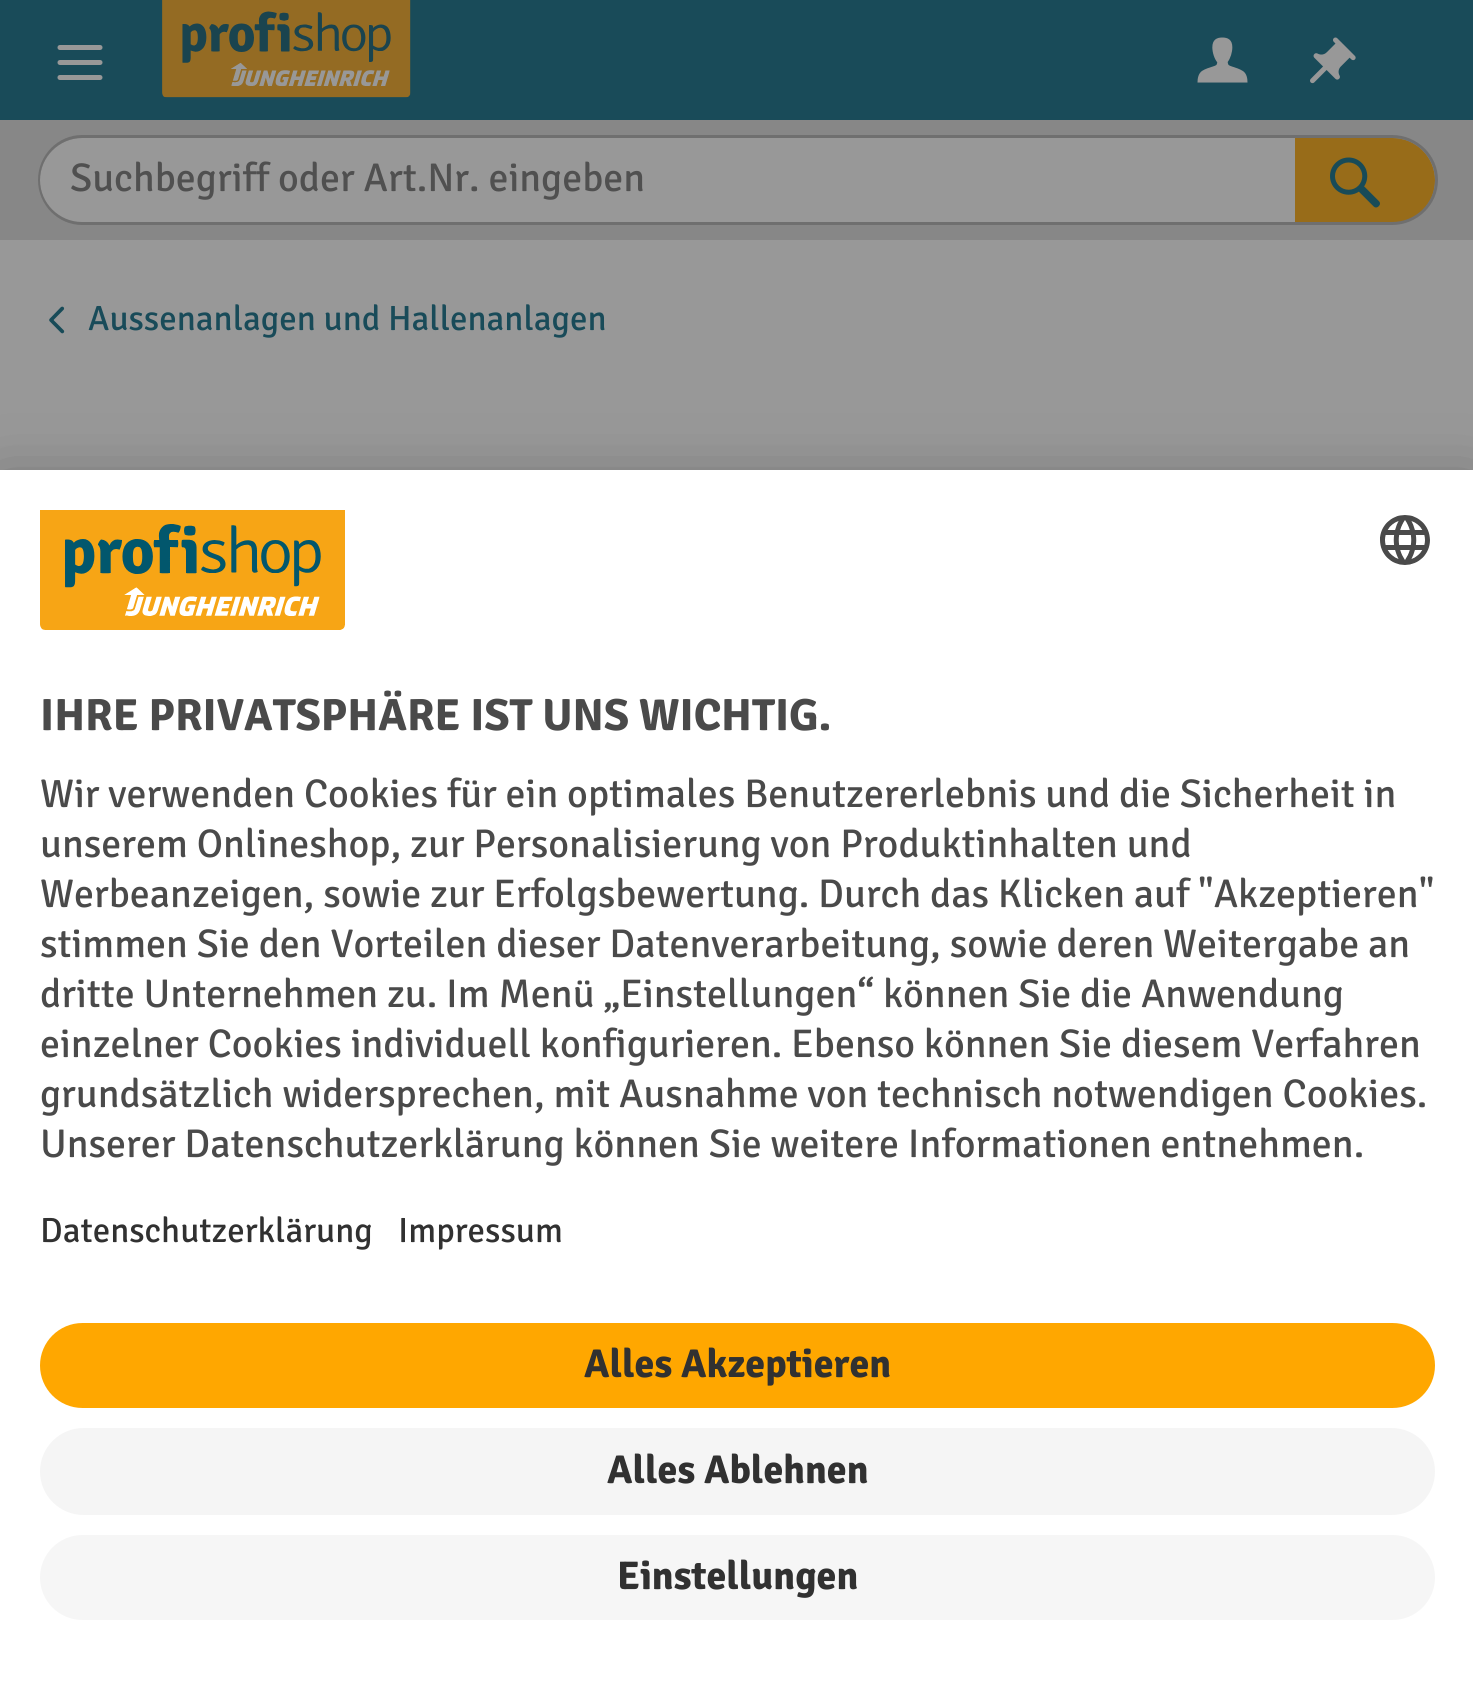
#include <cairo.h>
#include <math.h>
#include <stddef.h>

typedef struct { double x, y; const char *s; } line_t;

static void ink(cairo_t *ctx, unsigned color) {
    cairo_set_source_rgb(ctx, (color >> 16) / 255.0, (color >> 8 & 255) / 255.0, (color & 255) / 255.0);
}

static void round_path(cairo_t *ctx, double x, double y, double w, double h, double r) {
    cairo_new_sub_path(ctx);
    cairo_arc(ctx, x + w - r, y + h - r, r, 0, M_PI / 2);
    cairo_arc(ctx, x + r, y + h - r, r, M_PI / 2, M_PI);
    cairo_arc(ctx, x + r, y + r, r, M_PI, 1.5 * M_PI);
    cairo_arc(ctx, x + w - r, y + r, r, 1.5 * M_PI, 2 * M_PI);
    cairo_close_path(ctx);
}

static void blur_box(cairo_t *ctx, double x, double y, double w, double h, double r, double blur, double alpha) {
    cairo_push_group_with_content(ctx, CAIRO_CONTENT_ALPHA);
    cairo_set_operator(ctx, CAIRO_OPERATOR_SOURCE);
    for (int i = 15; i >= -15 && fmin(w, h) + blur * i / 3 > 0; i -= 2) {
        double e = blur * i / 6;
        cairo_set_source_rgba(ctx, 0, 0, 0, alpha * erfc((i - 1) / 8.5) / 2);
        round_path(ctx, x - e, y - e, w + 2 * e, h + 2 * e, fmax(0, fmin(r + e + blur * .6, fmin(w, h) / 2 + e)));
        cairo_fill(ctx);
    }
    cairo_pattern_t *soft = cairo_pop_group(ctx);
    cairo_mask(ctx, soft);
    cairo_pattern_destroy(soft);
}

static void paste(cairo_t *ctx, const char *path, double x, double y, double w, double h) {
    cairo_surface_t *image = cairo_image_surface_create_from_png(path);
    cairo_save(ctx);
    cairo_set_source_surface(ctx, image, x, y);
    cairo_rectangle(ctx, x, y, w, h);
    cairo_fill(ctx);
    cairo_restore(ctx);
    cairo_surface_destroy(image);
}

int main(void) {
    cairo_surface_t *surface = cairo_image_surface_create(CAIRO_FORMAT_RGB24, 1473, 1690);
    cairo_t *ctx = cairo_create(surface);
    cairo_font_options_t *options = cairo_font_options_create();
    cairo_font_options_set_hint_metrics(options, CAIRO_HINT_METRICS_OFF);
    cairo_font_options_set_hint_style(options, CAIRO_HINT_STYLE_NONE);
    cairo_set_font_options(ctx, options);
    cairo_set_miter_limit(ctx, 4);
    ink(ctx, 0x989898);
    cairo_paint(ctx);
    ink(ctx, 0x194B59);
    cairo_rectangle(ctx, 0, 0, 1473, 120);
    cairo_fill(ctx);
    paste(ctx, "media/1.png", 57, 45, 46, 35);
    paste(ctx, "media/2.png", 162, 0, 249, 98);
    paste(ctx, "media/3.png", 1197, 37, 51, 46);
    paste(ctx, "media/4.png", 1310, 37, 46, 47);
    ink(ctx, 0x878787);
    cairo_rectangle(ctx, 0, 120, 1473, 120);
    cairo_fill(ctx);
    ink(ctx, 0x989898);
    cairo_new_path(ctx);
    cairo_move_to(ctx, 82.5, 138);
    cairo_line_to(ctx, 1295, 138);
    cairo_line_to(ctx, 1295, 223);
    cairo_line_to(ctx, 82.5, 223);
    cairo_curve_to(ctx, 59, 223, 40, 204, 40, 180.5);
    cairo_curve_to(ctx, 40, 157, 59, 138, 82.5, 138);
    cairo_close_path(ctx);
    cairo_fill(ctx);
    ink(ctx, 0x6F6F6F);
    cairo_set_fill_rule(ctx, CAIRO_FILL_RULE_EVEN_ODD);
    cairo_new_path(ctx);
    cairo_move_to(ctx, 82, 135);
    cairo_line_to(ctx, 1295, 135);
    cairo_line_to(ctx, 1295, 225);
    cairo_line_to(ctx, 82, 225);
    cairo_curve_to(ctx, 58, 225, 38, 205, 38, 180);
    cairo_curve_to(ctx, 38, 155, 58, 135, 82, 135);
    cairo_close_path(ctx);
    cairo_move_to(ctx, 82, 138);
    cairo_line_to(ctx, 1295, 138);
    cairo_line_to(ctx, 1295, 222);
    cairo_line_to(ctx, 82, 222);
    cairo_curve_to(ctx, 59, 222, 40, 203, 40, 180);
    cairo_curve_to(ctx, 40, 157, 59, 138, 82, 138);
    cairo_close_path(ctx);
    cairo_fill(ctx);
    cairo_select_font_face(ctx, "Signika", CAIRO_FONT_SLANT_NORMAL, CAIRO_FONT_WEIGHT_NORMAL);
    cairo_set_font_size(ctx, 40);
    ink(ctx, 0x505050);
    cairo_move_to(ctx, 70, 191);
    cairo_show_text(ctx, "Suchbegriff oder Art.Nr. eingeben");
    ink(ctx, 0x986C19);
    cairo_new_path(ctx);
    cairo_move_to(ctx, 1295, 138);
    cairo_line_to(ctx, 1392.5, 138);
    cairo_curve_to(ctx, 1416, 138, 1435, 157, 1435, 180.5);
    cairo_curve_to(ctx, 1435, 204, 1416, 223, 1392.5, 223);
    cairo_line_to(ctx, 1295, 223);
    cairo_close_path(ctx);
    cairo_fill(ctx);
    ink(ctx, 0x6F6F6F);
    cairo_new_path(ctx);
    cairo_move_to(ctx, 1295, 135);
    cairo_line_to(ctx, 1392, 135);
    cairo_curve_to(ctx, 1417, 135, 1438, 155, 1438, 180);
    cairo_curve_to(ctx, 1438, 205, 1417, 225, 1392, 225);
    cairo_line_to(ctx, 1295, 225);
    cairo_close_path(ctx);
    cairo_move_to(ctx, 1295, 138);
    cairo_line_to(ctx, 1392, 138);
    cairo_curve_to(ctx, 1416, 138, 1435, 157, 1435, 180);
    cairo_curve_to(ctx, 1435, 203, 1416, 222, 1392, 222);
    cairo_line_to(ctx, 1295, 222);
    cairo_close_path(ctx);
    cairo_fill(ctx);
    paste(ctx, "media/5.png", 1330, 157, 50, 51);
    paste(ctx, "media/6.png", 49, 306, 16, 28);
    cairo_set_font_size(ctx, 35);
    ink(ctx, 0x194B59);
    cairo_move_to(ctx, 88, 330);
    cairo_show_text(ctx, "Aussenanlagen und Hallenanlagen");
    ink(ctx, 0x000000);
    blur_box(ctx, 0, 520, 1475, 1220, 0, 35, 0.3);
    blur_box(ctx, 0, 483, 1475, 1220, 0, 32.5, 0.22);
    ink(ctx, 0xFFFFFF);
    cairo_rectangle(ctx, 0, 470, 1473, 1220);
    cairo_fill(ctx);
    paste(ctx, "media/7.png", 40, 510, 305, 120);
    paste(ctx, "media/8.png", 1380, 515, 50, 50);
    cairo_select_font_face(ctx, "Signika", CAIRO_FONT_SLANT_NORMAL, CAIRO_FONT_WEIGHT_BOLD);
    cairo_set_font_size(ctx, 45);
    ink(ctx, 0x4A4A4A);
    cairo_move_to(ctx, 40, 730);
    cairo_show_text(ctx, "IHRE PRIVATSPHÄRE IST UNS WICHTIG.");
    cairo_select_font_face(ctx, "Signika", CAIRO_FONT_SLANT_NORMAL, CAIRO_FONT_WEIGHT_NORMAL);
    cairo_set_font_size(ctx, 40);
    {
        static const line_t items[] = {
            {40, 807, "Wir verwenden Cookies für ein optimales Benutzererlebnis und die Sicherheit in"},
            {40, 857, "unserem Onlineshop, zur Personalisierung von Produktinhalten und"},
            {40, 907, "Werbeanzeigen, sowie zur Erfolgsbewertung. Durch das Klicken auf \"Akzeptieren\""},
            {40, 957, "stimmen Sie den Vorteilen dieser Datenverarbeitung, sowie deren Weitergabe an"},
            {40, 1007, "dritte Unternehmen zu. Im Menü „Einstellungen“ können Sie die Anwendung"},
            {40, 1057, "einzelner Cookies individuell konfigurieren. Ebenso können Sie diesem Verfahren"},
            {40, 1107, "grundsätzlich widersprechen, mit Ausnahme von technisch notwendigen Cookies."},
            {40, 1157, "Unserer Datenschutzerklärung können Sie weitere Informationen entnehmen."},
        };
        for (size_t i = 0; i < sizeof items / sizeof *items; i++) {
            cairo_move_to(ctx, items[i].x, items[i].y);
            cairo_show_text(ctx, items[i].s);
        }
    }
    cairo_set_font_size(ctx, 35);
    ink(ctx, 0x313131);
    cairo_move_to(ctx, 40, 1242);
    cairo_show_text(ctx, "Datenschutzerklärung");
    cairo_move_to(ctx, 398, 1242);
    cairo_show_text(ctx, "Impressum");
    ink(ctx, 0xFFA700);
    round_path(ctx, 40, 1323, 1395, 85, 42.5);
    cairo_fill(ctx);
    cairo_select_font_face(ctx, "Signika", CAIRO_FONT_SLANT_NORMAL, CAIRO_FONT_WEIGHT_BOLD);
    cairo_set_font_size(ctx, 40);
    ink(ctx, 0x313131);
    cairo_move_to(ctx, 584, 1377);
    cairo_show_text(ctx, "Alles Akzeptieren");
    ink(ctx, 0xF5F5F5);
    round_path(ctx, 40, 1428, 1395, 87, 43.5);
    cairo_fill(ctx);
    ink(ctx, 0x313131);
    cairo_move_to(ctx, 607, 1483);
    cairo_show_text(ctx, "Alles Ablehnen");
    ink(ctx, 0xF6F6F6);
    round_path(ctx, 40, 1535, 1395, 85, 42.5);
    cairo_fill(ctx);
    ink(ctx, 0x313131);
    cairo_move_to(ctx, 617, 1589);
    cairo_show_text(ctx, "Einstellungen");
    cairo_surface_write_to_png(surface, "image.png");
    cairo_font_options_destroy(options);
    cairo_destroy(ctx);
    cairo_surface_destroy(surface);
    return 0;
}
